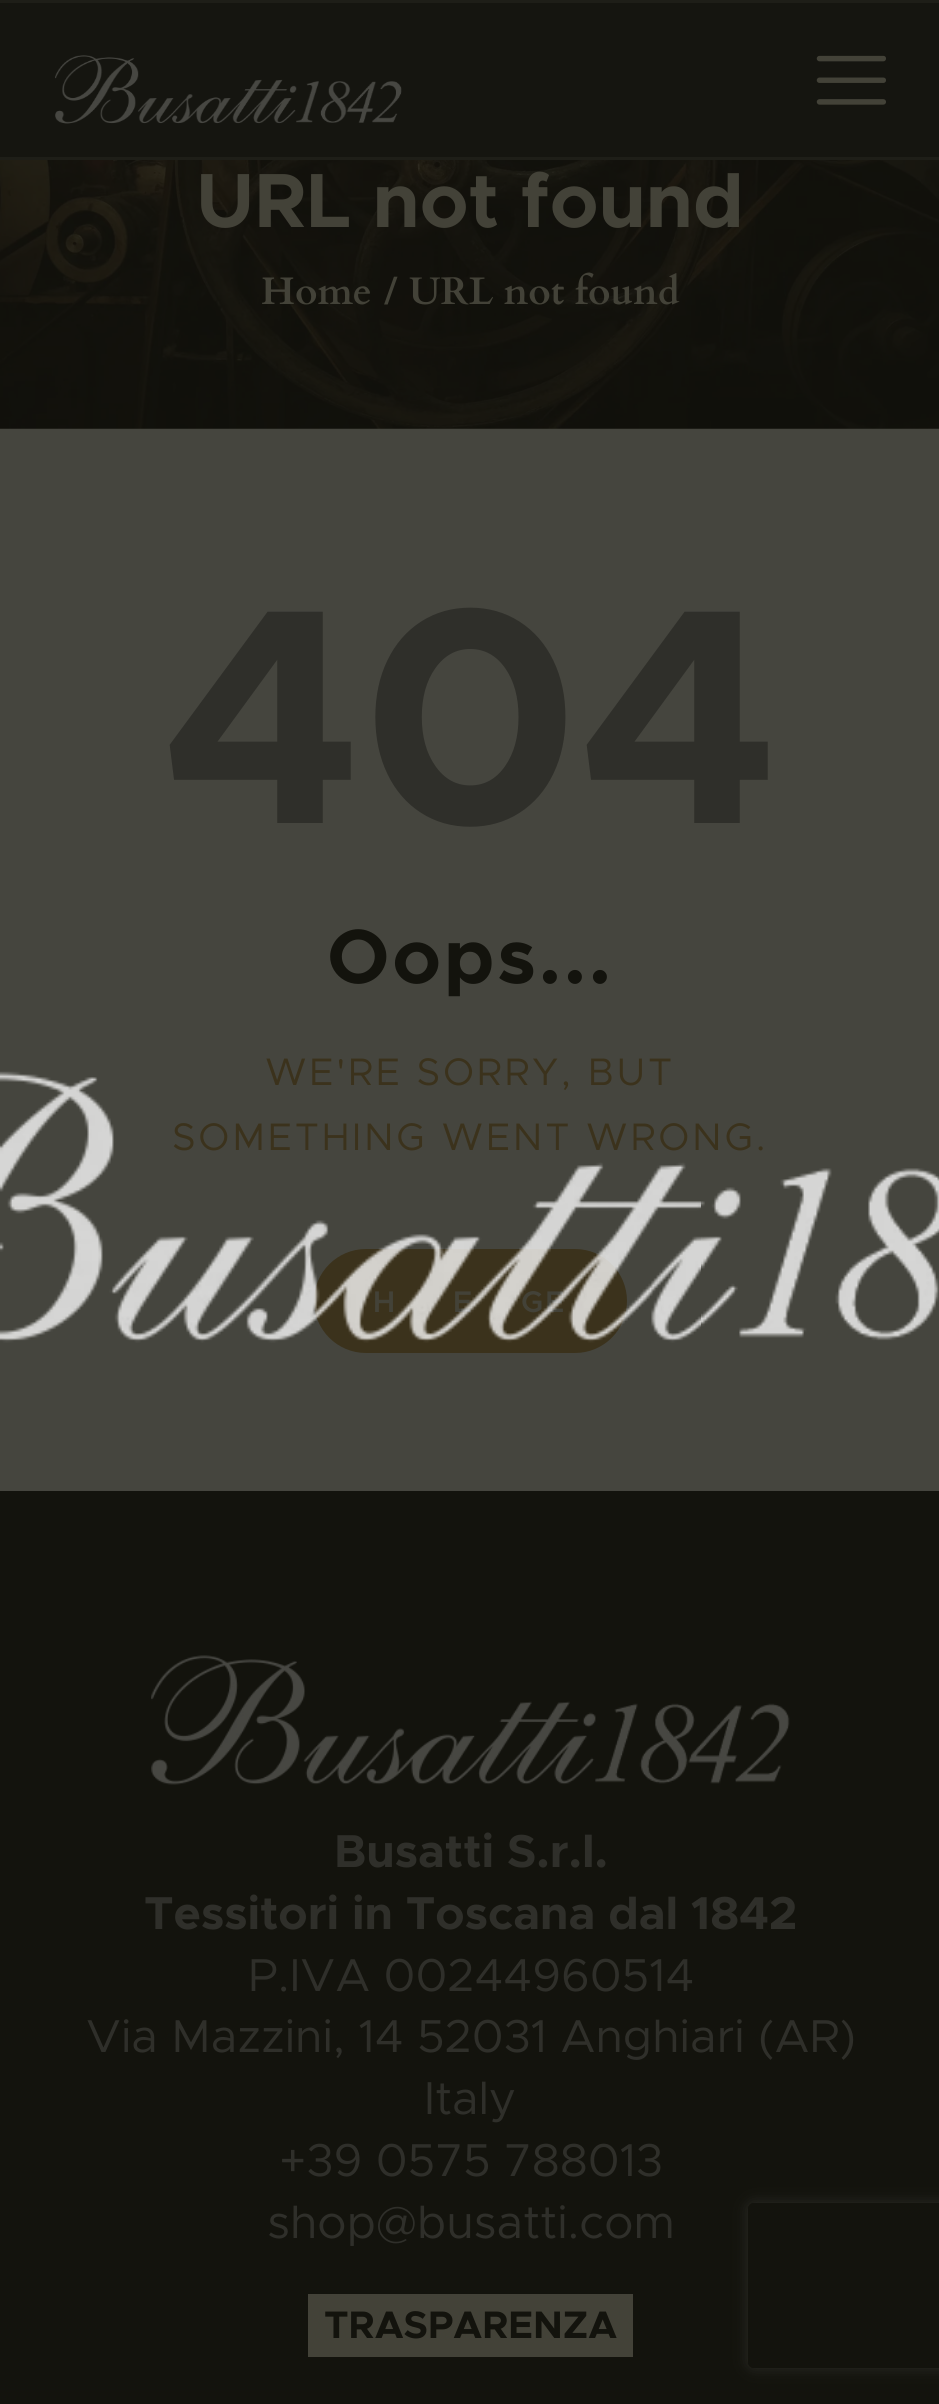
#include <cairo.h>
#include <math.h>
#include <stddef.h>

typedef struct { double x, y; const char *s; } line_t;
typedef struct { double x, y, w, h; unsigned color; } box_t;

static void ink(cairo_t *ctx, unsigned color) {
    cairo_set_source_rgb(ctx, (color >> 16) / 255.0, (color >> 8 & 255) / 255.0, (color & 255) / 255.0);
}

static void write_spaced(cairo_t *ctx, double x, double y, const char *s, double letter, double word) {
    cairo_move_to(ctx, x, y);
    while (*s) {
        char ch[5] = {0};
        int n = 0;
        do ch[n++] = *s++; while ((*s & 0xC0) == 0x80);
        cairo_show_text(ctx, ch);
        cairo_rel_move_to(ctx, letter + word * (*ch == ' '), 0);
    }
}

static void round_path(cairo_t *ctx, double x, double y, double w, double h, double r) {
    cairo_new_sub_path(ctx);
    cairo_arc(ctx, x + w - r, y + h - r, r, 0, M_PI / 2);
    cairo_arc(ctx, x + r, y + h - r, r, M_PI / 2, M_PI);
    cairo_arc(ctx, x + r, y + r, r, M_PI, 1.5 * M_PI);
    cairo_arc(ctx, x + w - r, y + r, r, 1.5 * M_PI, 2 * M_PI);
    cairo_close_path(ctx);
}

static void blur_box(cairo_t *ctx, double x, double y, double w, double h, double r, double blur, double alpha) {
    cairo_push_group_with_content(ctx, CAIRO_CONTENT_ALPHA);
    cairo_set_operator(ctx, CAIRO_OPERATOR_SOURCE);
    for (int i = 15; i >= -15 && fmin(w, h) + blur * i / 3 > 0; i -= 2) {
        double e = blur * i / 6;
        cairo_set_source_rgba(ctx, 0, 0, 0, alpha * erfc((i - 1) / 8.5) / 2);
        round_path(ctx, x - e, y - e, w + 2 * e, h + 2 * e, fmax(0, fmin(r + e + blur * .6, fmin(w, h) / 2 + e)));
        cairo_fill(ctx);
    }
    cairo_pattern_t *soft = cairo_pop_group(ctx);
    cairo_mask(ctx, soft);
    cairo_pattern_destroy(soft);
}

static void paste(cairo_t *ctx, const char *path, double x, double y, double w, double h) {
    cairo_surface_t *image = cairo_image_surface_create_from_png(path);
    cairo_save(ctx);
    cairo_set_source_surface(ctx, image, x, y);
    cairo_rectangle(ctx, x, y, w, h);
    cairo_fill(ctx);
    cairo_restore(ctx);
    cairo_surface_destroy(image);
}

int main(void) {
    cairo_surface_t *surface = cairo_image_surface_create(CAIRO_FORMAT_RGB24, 939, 2404);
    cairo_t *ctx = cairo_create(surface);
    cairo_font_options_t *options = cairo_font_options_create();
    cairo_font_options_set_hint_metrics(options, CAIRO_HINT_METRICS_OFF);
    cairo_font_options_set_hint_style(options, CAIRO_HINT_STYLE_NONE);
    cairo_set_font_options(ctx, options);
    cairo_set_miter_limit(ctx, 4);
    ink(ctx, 0x45453E);
    cairo_paint(ctx);
    paste(ctx, "media/1.png", 0, 160, 939, 269);
    {
        static const box_t items[] = {
            {0, 3, 939, 154, 0x151510},
            {0, 0, 939, 3, 0x1E1E18},
            {0, 157, 939, 3, 0x1E1E18},
        };
        for (size_t i = 0; i < sizeof items / sizeof *items; i++) {
            ink(ctx, items[i].color);
            cairo_rectangle(ctx, items[i].x, items[i].y, items[i].w, items[i].h);
            cairo_fill(ctx);
        }
    }
    paste(ctx, "media/2.png", 55, 55, 347, 69);
    paste(ctx, "media/3.png", 816, 55, 70, 50);
    cairo_select_font_face(ctx, "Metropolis", CAIRO_FONT_SLANT_NORMAL, CAIRO_FONT_WEIGHT_BOLD);
    cairo_set_font_size(ctx, 77);
    ink(ctx, 0x434238);
    cairo_move_to(ctx, 196, 227);
    cairo_show_text(ctx, "URL not found");
    cairo_select_font_face(ctx, "Cardo", CAIRO_FONT_SLANT_NORMAL, CAIRO_FONT_WEIGHT_BOLD);
    cairo_set_font_size(ctx, 38.5);
    {
        static const line_t items[] = {
            {261, 304, "Home"},
            {384, 304, "/"},
            {409, 304, "URL not found"},
        };
        for (size_t i = 0; i < sizeof items / sizeof *items; i++) {
            cairo_move_to(ctx, items[i].x, items[i].y);
            cairo_show_text(ctx, items[i].s);
        }
    }
    cairo_select_font_face(ctx, "Metropolis", CAIRO_FONT_SLANT_NORMAL, CAIRO_FONT_WEIGHT_BOLD);
    cairo_set_font_size(ctx, 308);
    ink(ctx, 0x2F2F2A);
    cairo_move_to(ctx, 162, 823);
    cairo_show_text(ctx, "404");
    cairo_set_font_size(ctx, 77);
    ink(ctx, 0x13130D);
    write_spaced(ctx, 327, 983, "Oops...", 2.75, 0);
    cairo_select_font_face(ctx, "Metropolis", CAIRO_FONT_SLANT_NORMAL, CAIRO_FONT_WEIGHT_NORMAL);
    cairo_set_font_size(ctx, 38.5);
    ink(ctx, 0x3B321C);
    write_spaced(ctx, 265, 1085, "WE'RE SORRY, BUT", 2.75, 0);
    write_spaced(ctx, 172, 1150, "SOMETHING WENT WRONG.", 2.75, 0);
    round_path(ctx, 314, 1249, 313, 104, 52);
    cairo_fill(ctx);
    cairo_select_font_face(ctx, "Metropolis SemiBold", CAIRO_FONT_SLANT_NORMAL, CAIRO_FONT_WEIGHT_NORMAL);
    cairo_set_font_size(ctx, 30);
    ink(ctx, 0x434238);
    {
        static const line_t items[] = {
            {373, 1312, "H"},
            {453, 1312, "E"},
            {521, 1312, "GE"},
        };
        for (size_t i = 0; i < sizeof items / sizeof *items; i++) {
            write_spaced(ctx, items[i].x, items[i].y, items[i].s, 2, 0);
        }
    }
    ink(ctx, 0x13130D);
    cairo_rectangle(ctx, 0, 1491, 939, 913);
    cairo_fill(ctx);
    paste(ctx, "media/4.png", 151, 1655, 639, 130);
    cairo_select_font_face(ctx, "Metropolis", CAIRO_FONT_SLANT_NORMAL, CAIRO_FONT_WEIGHT_BOLD);
    cairo_set_font_size(ctx, 46.25);
    ink(ctx, 0x2F2F2A);
    cairo_move_to(ctx, 334, 1867);
    cairo_show_text(ctx, "Busatti S.r.l.");
    cairo_move_to(ctx, 144, 1929);
    cairo_show_text(ctx, "Tessitori in Toscana dal 1842");
    cairo_select_font_face(ctx, "Metropolis", CAIRO_FONT_SLANT_NORMAL, CAIRO_FONT_WEIGHT_NORMAL);
    {
        static const line_t items[] = {
            {248, 1991, "P.IVA 00244960514"},
            {86, 2052, "Via Mazzini, 14 52031 Anghiari (AR)"},
            {424, 2114, "Italy"},
            {279, 2176, "+39 0575 788013"},
            {267, 2238, "shop@busatti.com"},
        };
        for (size_t i = 0; i < sizeof items / sizeof *items; i++) {
            cairo_move_to(ctx, items[i].x, items[i].y);
            cairo_show_text(ctx, items[i].s);
        }
    }
    ink(ctx, 0x434238);
    cairo_rectangle(ctx, 308, 2294, 325, 63);
    cairo_fill(ctx);
    cairo_select_font_face(ctx, "Metropolis", CAIRO_FONT_SLANT_NORMAL, CAIRO_FONT_WEIGHT_BOLD);
    cairo_set_font_size(ctx, 38.5);
    ink(ctx, 0x13130D);
    cairo_move_to(ctx, 324, 2338);
    cairo_show_text(ctx, "TRASPARENZA");
    paste(ctx, "media/5.png", 0, 1071, 939, 272);
    cairo_save(ctx);
    cairo_set_fill_rule(ctx, CAIRO_FILL_RULE_EVEN_ODD);
    cairo_new_path(ctx);
    cairo_move_to(ctx, 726, 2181);
    cairo_line_to(ctx, 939, 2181);
    cairo_line_to(ctx, 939, 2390);
    cairo_line_to(ctx, 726, 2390);
    cairo_close_path(ctx);
    cairo_move_to(ctx, 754, 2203);
    cairo_line_to(ctx, 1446, 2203);
    cairo_curve_to(ctx, 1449.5, 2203, 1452, 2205.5, 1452, 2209);
    cairo_line_to(ctx, 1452, 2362);
    cairo_curve_to(ctx, 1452, 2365.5, 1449.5, 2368, 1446, 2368);
    cairo_line_to(ctx, 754, 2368);
    cairo_curve_to(ctx, 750.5, 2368, 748, 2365.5, 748, 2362);
    cairo_line_to(ctx, 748, 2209);
    cairo_curve_to(ctx, 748, 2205.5, 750.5, 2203, 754, 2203);
    cairo_close_path(ctx);
    cairo_clip(ctx);
    ink(ctx, 0x2B2B26);
    blur_box(ctx, 748, 2203, 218, 165, 6, 7, 1);
    cairo_restore(ctx);
    cairo_surface_write_to_png(surface, "image.png");
    cairo_font_options_destroy(options);
    cairo_destroy(ctx);
    cairo_surface_destroy(surface);
    return 0;
}
